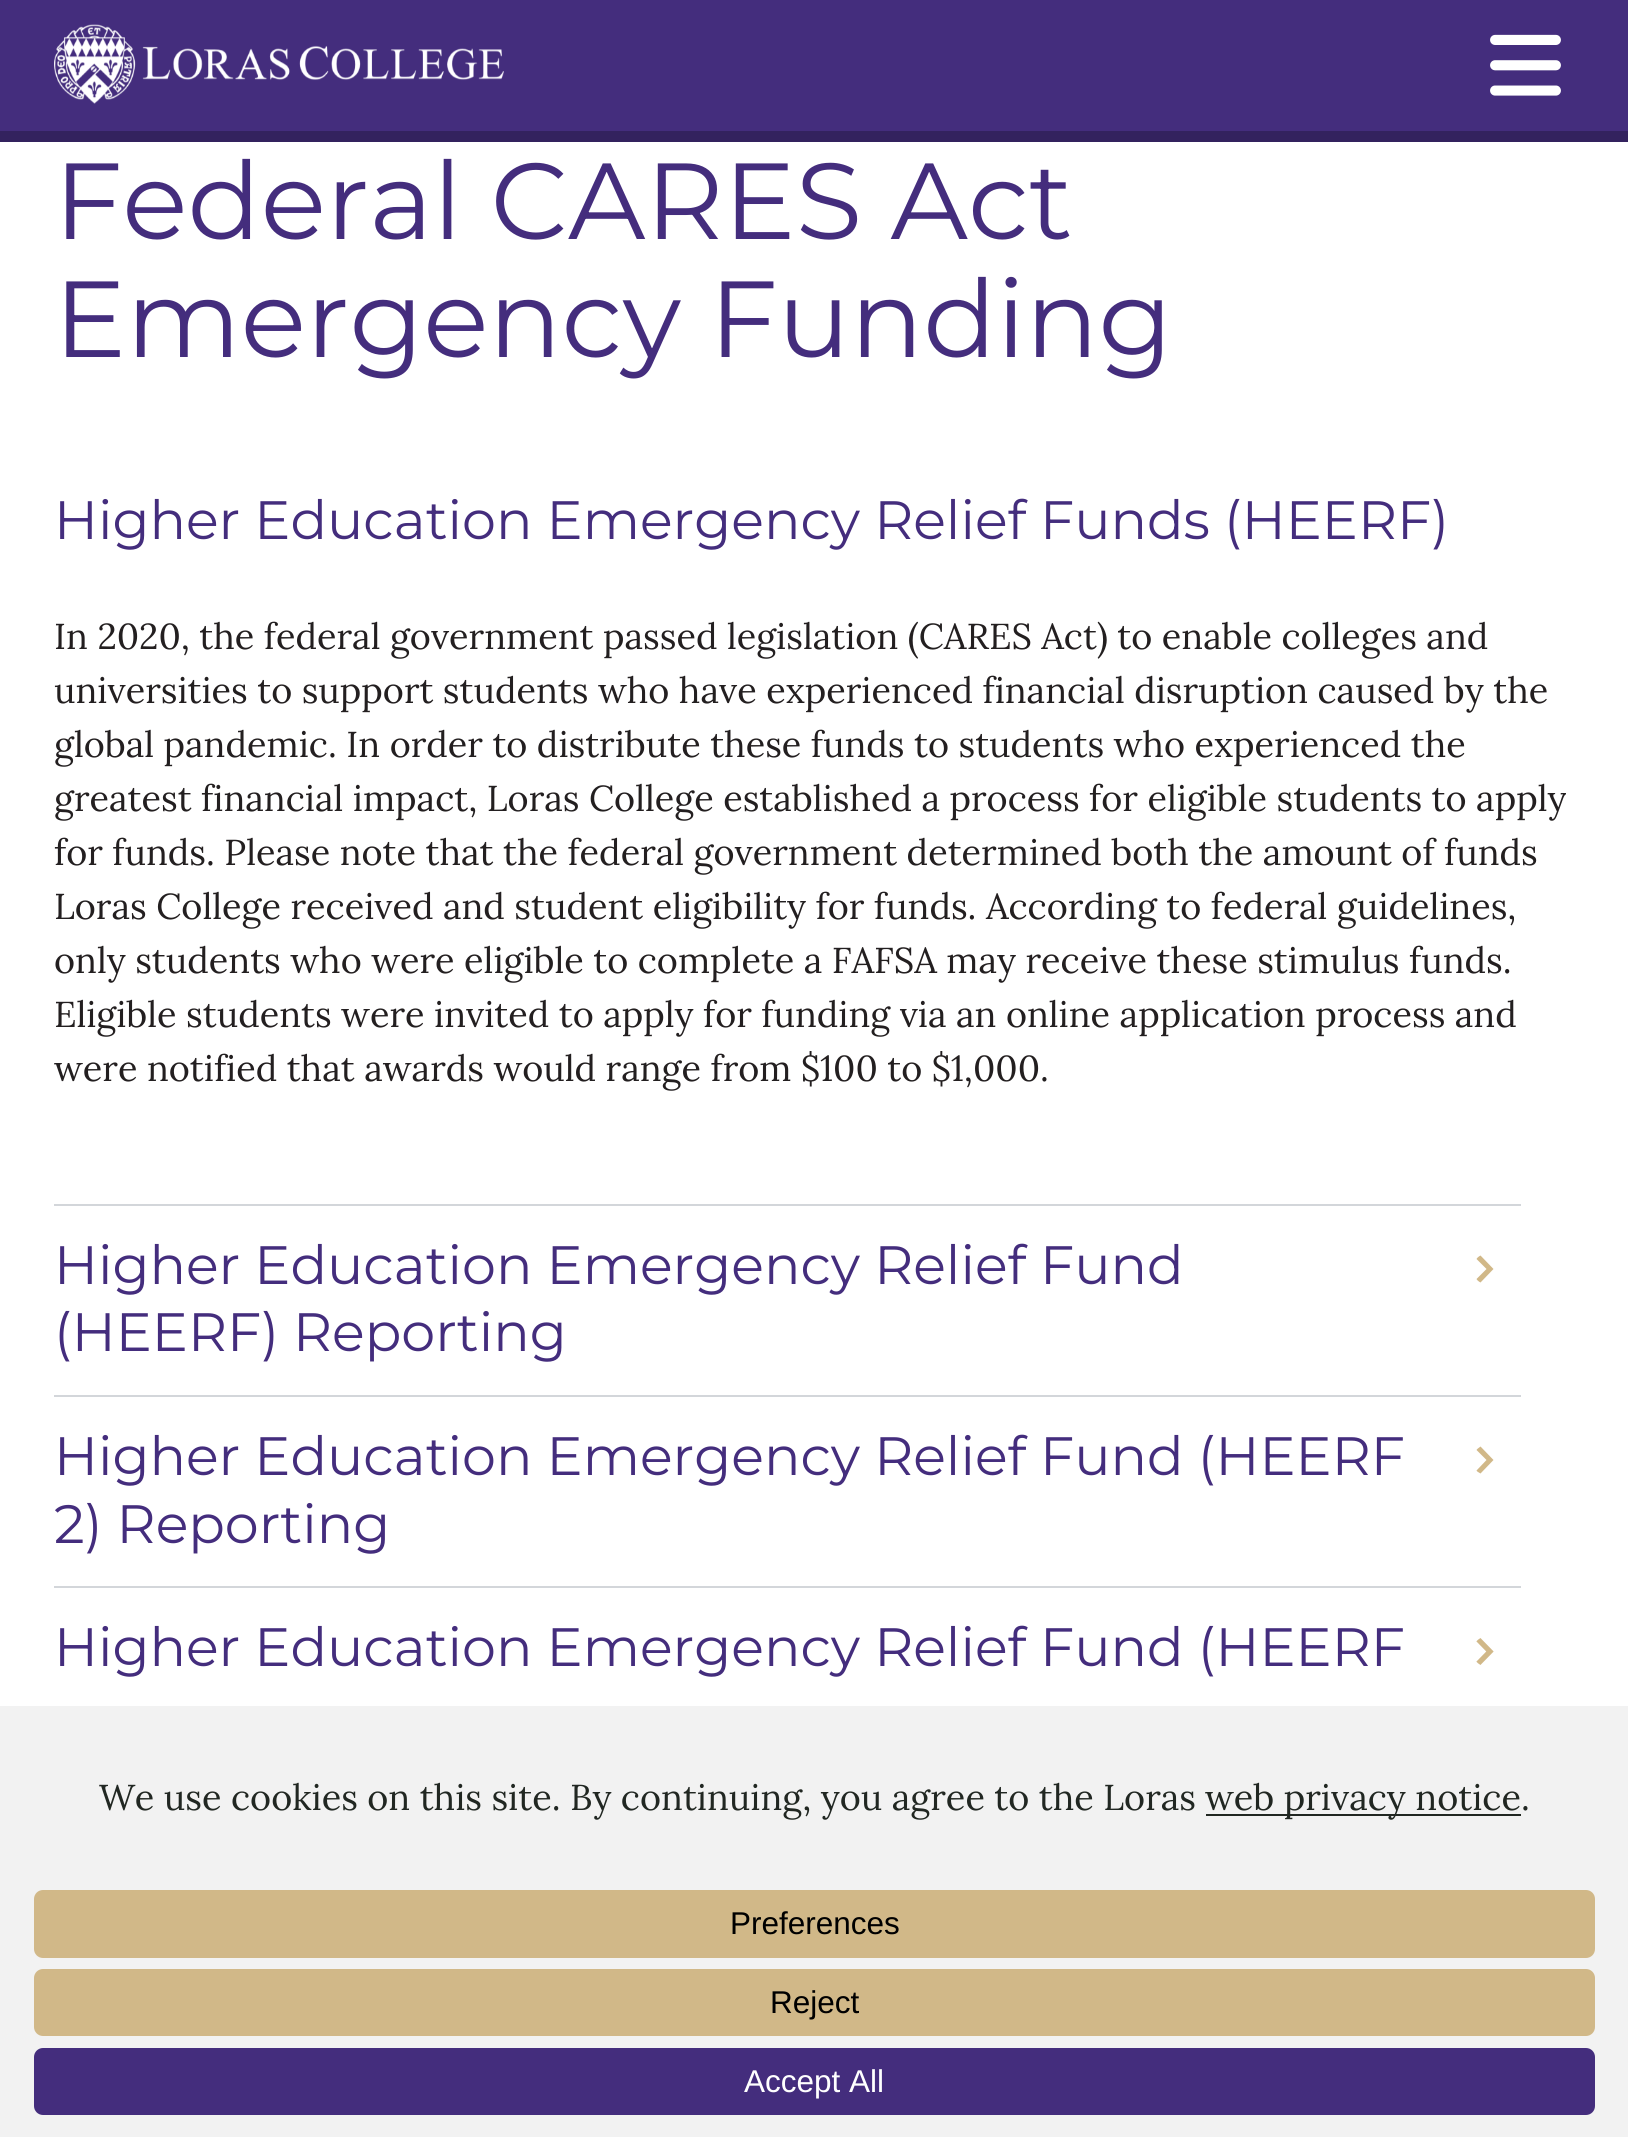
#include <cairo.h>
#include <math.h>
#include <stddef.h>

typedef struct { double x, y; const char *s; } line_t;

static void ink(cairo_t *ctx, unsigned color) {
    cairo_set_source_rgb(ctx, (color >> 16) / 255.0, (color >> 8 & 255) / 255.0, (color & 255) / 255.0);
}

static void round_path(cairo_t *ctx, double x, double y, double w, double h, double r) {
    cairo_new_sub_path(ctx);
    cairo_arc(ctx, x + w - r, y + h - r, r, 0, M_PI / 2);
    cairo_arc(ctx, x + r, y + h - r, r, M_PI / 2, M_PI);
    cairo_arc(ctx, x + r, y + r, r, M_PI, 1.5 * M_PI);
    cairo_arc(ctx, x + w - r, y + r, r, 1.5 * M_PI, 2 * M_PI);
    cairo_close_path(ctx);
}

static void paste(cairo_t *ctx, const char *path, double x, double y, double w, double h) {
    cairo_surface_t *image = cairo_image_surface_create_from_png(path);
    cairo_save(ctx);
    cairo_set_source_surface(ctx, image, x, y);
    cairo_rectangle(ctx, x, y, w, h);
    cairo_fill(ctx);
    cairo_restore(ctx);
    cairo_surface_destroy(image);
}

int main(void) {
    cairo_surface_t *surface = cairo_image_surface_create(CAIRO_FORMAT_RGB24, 1628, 2137);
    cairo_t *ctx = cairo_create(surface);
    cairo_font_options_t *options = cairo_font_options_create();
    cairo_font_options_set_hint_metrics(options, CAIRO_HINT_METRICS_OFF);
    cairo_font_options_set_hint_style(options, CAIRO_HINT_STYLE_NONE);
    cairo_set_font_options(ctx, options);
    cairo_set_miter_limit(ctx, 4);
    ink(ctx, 0xFFFFFF);
    cairo_paint(ctx);
    ink(ctx, 0x442D7D);
    cairo_rectangle(ctx, 0, 0, 1628, 131);
    cairo_fill(ctx);
    ink(ctx, 0x33225E);
    cairo_rectangle(ctx, 0, 131, 1628, 11);
    cairo_fill(ctx);
    paste(ctx, "media/1.png", 54, 24, 450, 80);
    paste(ctx, "media/2.png", 1490, 34, 71, 62);
    cairo_select_font_face(ctx, "Montserrat Thin", CAIRO_FONT_SLANT_NORMAL, CAIRO_FONT_WEIGHT_NORMAL);
    cairo_set_font_size(ctx, 108);
    ink(ctx, 0x442D7D);
    cairo_move_to(ctx, 54, 239);
    cairo_show_text(ctx, "Federal CARES Act");
    cairo_move_to(ctx, 54, 357);
    cairo_show_text(ctx, "Emergency Funding");
    cairo_set_font_size(ctx, 54);
    cairo_move_to(ctx, 54, 539);
    cairo_show_text(ctx, "Higher Education Emergency Relief Funds (HEERF)");
    cairo_select_font_face(ctx, "Lora", CAIRO_FONT_SLANT_NORMAL, CAIRO_FONT_WEIGHT_NORMAL);
    cairo_set_font_size(ctx, 36);
    ink(ctx, 0x231F20);
    {
        static const line_t items[] = {
            {54, 649, "In 2020, the federal government passed legislation (CARES Act) to enable colleges and"},
            {54, 703, "universities to support students who have experienced financial disruption caused by the"},
            {54, 757, "global pandemic. In order to distribute these funds to students who experienced the"},
            {54, 811, "greatest financial impact, Loras College established a process for eligible students to apply"},
            {54, 865, "for funds. Please note that the federal government determined both the amount of funds"},
            {54, 919, "Loras College received and student eligibility for funds. According to federal guidelines,"},
            {54, 973, "only students who were eligible to complete a FAFSA may receive these stimulus funds."},
            {54, 1027, "Eligible students were invited to apply for funding via an online application process and"},
            {54, 1081, "were notified that awards would range from $100 to $1,000."},
        };
        for (size_t i = 0; i < sizeof items / sizeof *items; i++) {
            cairo_move_to(ctx, items[i].x, items[i].y);
            cairo_show_text(ctx, items[i].s);
        }
    }
    ink(ctx, 0xD3D6DA);
    cairo_rectangle(ctx, 54, 1204, 1467, 2);
    cairo_fill(ctx);
    cairo_rectangle(ctx, 54, 1395, 1467, 2);
    cairo_fill(ctx);
    cairo_select_font_face(ctx, "Montserrat Thin", CAIRO_FONT_SLANT_NORMAL, CAIRO_FONT_WEIGHT_NORMAL);
    cairo_set_font_size(ctx, 54);
    ink(ctx, 0x442D7D);
    cairo_move_to(ctx, 54, 1284);
    cairo_show_text(ctx, "Higher Education Emergency Relief Fund");
    cairo_move_to(ctx, 54, 1351);
    cairo_show_text(ctx, "(HEERF) Reporting");
    ink(ctx, 0xD1B888);
    cairo_set_fill_rule(ctx, CAIRO_FILL_RULE_EVEN_ODD);
    cairo_new_path(ctx);
    cairo_move_to(ctx, 1476.5, 1259);
    cairo_curve_to(ctx, 1477, 1258, 1478.5, 1256.5, 1480.5, 1255.5);
    cairo_line_to(ctx, 1493.5, 1269);
    cairo_line_to(ctx, 1480.5, 1282.5);
    cairo_curve_to(ctx, 1478.5, 1281.5, 1477, 1280, 1476.5, 1279);
    cairo_line_to(ctx, 1486.5, 1269);
    cairo_close_path(ctx);
    cairo_fill(ctx);
    ink(ctx, 0xD3D6DA);
    cairo_rectangle(ctx, 54, 1586, 1467, 2);
    cairo_fill(ctx);
    ink(ctx, 0x442D7D);
    cairo_move_to(ctx, 54, 1475);
    cairo_show_text(ctx, "Higher Education Emergency Relief Fund (HEERF");
    cairo_move_to(ctx, 54, 1543);
    cairo_show_text(ctx, "2) Reporting");
    ink(ctx, 0xD1B888);
    cairo_new_path(ctx);
    cairo_move_to(ctx, 1476.5, 1450);
    cairo_curve_to(ctx, 1477, 1449, 1478.5, 1448, 1480.5, 1446.5);
    cairo_line_to(ctx, 1493.5, 1460);
    cairo_line_to(ctx, 1480.5, 1473.5);
    cairo_curve_to(ctx, 1478.5, 1472.5, 1477, 1471.5, 1476.5, 1470.5);
    cairo_line_to(ctx, 1486.5, 1460);
    cairo_close_path(ctx);
    cairo_fill(ctx);
    ink(ctx, 0x442D7D);
    cairo_move_to(ctx, 54, 1666);
    cairo_show_text(ctx, "Higher Education Emergency Relief Fund (HEERF");
    paste(ctx, "media/3.png", 1476, 1638, 18, 27);
    ink(ctx, 0xF2F2F2);
    cairo_rectangle(ctx, 0, 1706, 1628, 431);
    cairo_fill(ctx);
    cairo_select_font_face(ctx, "Lora", CAIRO_FONT_SLANT_NORMAL, CAIRO_FONT_WEIGHT_NORMAL);
    cairo_set_font_size(ctx, 36);
    ink(ctx, 0x212722);
    cairo_move_to(ctx, 99, 1810);
    cairo_show_text(ctx, "We use cookies on this site. By continuing, you agree to the Loras");
    cairo_rectangle(ctx, 1206, 1814, 315, 2);
    cairo_fill(ctx);
    cairo_move_to(ctx, 1205, 1810);
    cairo_show_text(ctx, "web privacy notice.");
    ink(ctx, 0xD1B888);
    round_path(ctx, 34, 1890, 1561, 68, 9);
    cairo_fill(ctx);
    cairo_select_font_face(ctx, "Liberation Sans", CAIRO_FONT_SLANT_NORMAL, CAIRO_FONT_WEIGHT_NORMAL);
    cairo_set_font_size(ctx, 31.5);
    ink(ctx, 0x000000);
    cairo_move_to(ctx, 730, 1934);
    cairo_show_text(ctx, "Preferences");
    ink(ctx, 0xD1B888);
    round_path(ctx, 34, 1969, 1561, 67, 9);
    cairo_fill(ctx);
    ink(ctx, 0x000000);
    cairo_move_to(ctx, 770, 2013);
    cairo_show_text(ctx, "Reject");
    ink(ctx, 0x442D7D);
    round_path(ctx, 34, 2048, 1561, 67, 9);
    cairo_fill(ctx);
    ink(ctx, 0xFFFFFF);
    cairo_move_to(ctx, 744, 2092);
    cairo_show_text(ctx, "Accept All");
    cairo_surface_write_to_png(surface, "image.png");
    cairo_font_options_destroy(options);
    cairo_destroy(ctx);
    cairo_surface_destroy(surface);
    return 0;
}
